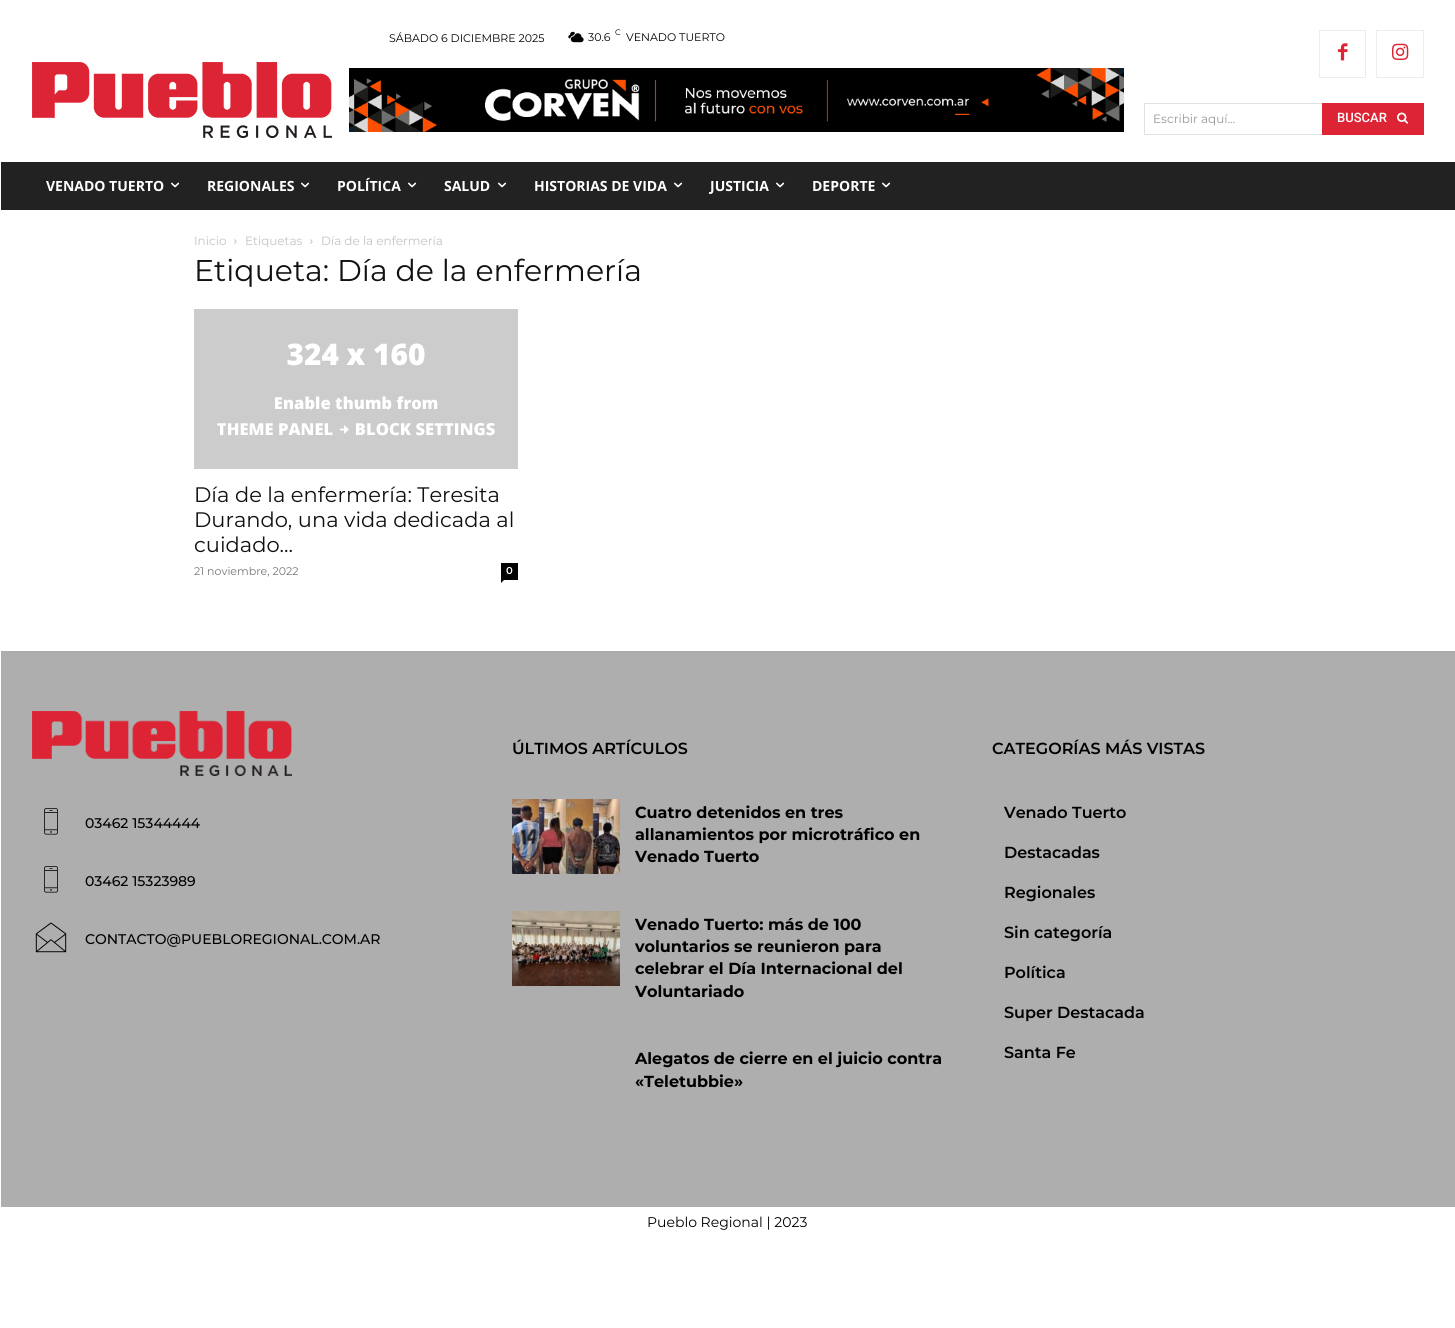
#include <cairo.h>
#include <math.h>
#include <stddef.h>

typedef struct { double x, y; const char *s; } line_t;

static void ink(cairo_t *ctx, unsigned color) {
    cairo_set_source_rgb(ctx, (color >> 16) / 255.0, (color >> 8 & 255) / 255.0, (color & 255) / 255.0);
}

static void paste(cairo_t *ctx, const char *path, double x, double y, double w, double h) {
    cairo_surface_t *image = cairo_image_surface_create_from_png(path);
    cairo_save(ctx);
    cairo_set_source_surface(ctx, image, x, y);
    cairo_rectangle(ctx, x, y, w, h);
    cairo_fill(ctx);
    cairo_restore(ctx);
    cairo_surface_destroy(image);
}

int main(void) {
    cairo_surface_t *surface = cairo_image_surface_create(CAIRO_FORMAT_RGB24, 1455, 1328);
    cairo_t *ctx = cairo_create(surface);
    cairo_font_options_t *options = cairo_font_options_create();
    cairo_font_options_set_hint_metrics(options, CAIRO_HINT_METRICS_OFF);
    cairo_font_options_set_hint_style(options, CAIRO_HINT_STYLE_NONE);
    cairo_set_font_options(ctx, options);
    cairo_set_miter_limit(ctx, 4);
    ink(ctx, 0xFFFFFF);
    cairo_paint(ctx);
    cairo_select_font_face(ctx, "Montserrat", CAIRO_FONT_SLANT_NORMAL, CAIRO_FONT_WEIGHT_NORMAL);
    cairo_set_font_size(ctx, 11);
    ink(ctx, 0x000000);
    cairo_move_to(ctx, 389, 42);
    cairo_show_text(ctx, "SÁBADO 6 DICIEMBRE 2025");
    paste(ctx, "media/1.png", 568, 31, 16, 12);
    cairo_move_to(ctx, 588, 41);
    cairo_show_text(ctx, "30.6");
    cairo_set_font_size(ctx, 8);
    cairo_move_to(ctx, 615, 35);
    cairo_show_text(ctx, "C");
    cairo_set_font_size(ctx, 11);
    cairo_move_to(ctx, 626, 41);
    cairo_show_text(ctx, "VENADO TUERTO");
    paste(ctx, "media/2.png", 349, 68, 775, 64);
    paste(ctx, "media/3.png", 32, 62, 300, 76);
    cairo_rectangle(ctx, 1319.5, 30.5, 46, 47);
    ink(ctx, 0xEDEDED);
    cairo_set_line_width(ctx, 1);
    cairo_stroke(ctx);
    paste(ctx, "media/4.png", 1338, 43, 10, 18);
    cairo_rectangle(ctx, 1376.5, 30.5, 47, 47);
    cairo_stroke(ctx);
    paste(ctx, "media/5.png", 1392, 43, 17, 17);
    cairo_rectangle(ctx, 1144.5, 103.5, 279, 31);
    ink(ctx, 0xE1E1E1);
    cairo_stroke(ctx);
    cairo_set_font_size(ctx, 12);
    ink(ctx, 0x999999);
    cairo_move_to(ctx, 1153, 123);
    cairo_show_text(ctx, "Escribir aquí...");
    ink(ctx, 0xDC2435);
    cairo_rectangle(ctx, 1322, 103, 102, 32);
    cairo_fill(ctx);
    cairo_select_font_face(ctx, "Roboto Medium", CAIRO_FONT_SLANT_NORMAL, CAIRO_FONT_WEIGHT_NORMAL);
    cairo_set_font_size(ctx, 13);
    ink(ctx, 0xFFFFFF);
    cairo_move_to(ctx, 1337, 122);
    cairo_show_text(ctx, "BUSCAR");
    paste(ctx, "media/6.png", 1397, 112, 12, 12);
    ink(ctx, 0x222222);
    cairo_rectangle(ctx, 1, 162, 1454, 48);
    cairo_fill(ctx);
    cairo_select_font_face(ctx, "Open Sans", CAIRO_FONT_SLANT_NORMAL, CAIRO_FONT_WEIGHT_BOLD);
    cairo_set_font_size(ctx, 14);
    ink(ctx, 0xFFFFFF);
    cairo_move_to(ctx, 46, 191);
    cairo_show_text(ctx, "VENADO TUERTO");
    paste(ctx, "media/7.png", 171, 182, 9, 6);
    cairo_move_to(ctx, 207, 191);
    cairo_show_text(ctx, "REGIONALES");
    paste(ctx, "media/7.png", 301, 182, 9, 6);
    cairo_move_to(ctx, 337, 191);
    cairo_show_text(ctx, "POLÍTICA");
    paste(ctx, "media/7.png", 408, 182, 9, 6);
    cairo_move_to(ctx, 444, 191);
    cairo_show_text(ctx, "SALUD");
    paste(ctx, "media/7.png", 498, 182, 9, 6);
    cairo_move_to(ctx, 534, 191);
    cairo_show_text(ctx, "HISTORIAS DE VIDA");
    paste(ctx, "media/7.png", 674, 182, 9, 6);
    cairo_move_to(ctx, 710, 191);
    cairo_show_text(ctx, "JUSTICIA");
    paste(ctx, "media/7.png", 776, 182, 9, 6);
    cairo_move_to(ctx, 812, 191);
    cairo_show_text(ctx, "DEPORTE");
    paste(ctx, "media/7.png", 882, 182, 9, 6);
    cairo_select_font_face(ctx, "Montserrat", CAIRO_FONT_SLANT_NORMAL, CAIRO_FONT_WEIGHT_NORMAL);
    cairo_set_font_size(ctx, 12);
    ink(ctx, 0xC3C3C3);
    cairo_move_to(ctx, 194, 245);
    cairo_show_text(ctx, "Inicio");
    paste(ctx, "media/8.png", 234, 239, 3, 5);
    cairo_move_to(ctx, 245, 245);
    cairo_show_text(ctx, "Etiquetas");
    paste(ctx, "media/8.png", 310, 239, 3, 5);
    cairo_move_to(ctx, 321, 245);
    cairo_show_text(ctx, "Día de la enfermería");
    cairo_set_font_size(ctx, 30);
    ink(ctx, 0x111111);
    cairo_move_to(ctx, 194, 281);
    cairo_show_text(ctx, "Etiqueta: Día de la enfermería");
    paste(ctx, "media/9.png", 194, 309, 324, 160);
    cairo_set_font_size(ctx, 21);
    {
        static const line_t items[] = {
            {194, 502, "Día de la enfermería: Teresita"},
            {194, 527, "Durando, una vida dedicada al"},
            {194, 552, "cuidado..."},
        };
        for (size_t i = 0; i < sizeof items / sizeof *items; i++) {
            cairo_move_to(ctx, items[i].x, items[i].y);
            cairo_show_text(ctx, items[i].s);
        }
    }
    cairo_set_font_size(ctx, 11);
    ink(ctx, 0x767676);
    cairo_move_to(ctx, 194, 575);
    cairo_show_text(ctx, "21 noviembre, 2022");
    ink(ctx, 0x000000);
    cairo_rectangle(ctx, 501, 563, 17, 17);
    cairo_fill(ctx);
    cairo_select_font_face(ctx, "Montserrat SemiBold", CAIRO_FONT_SLANT_NORMAL, CAIRO_FONT_WEIGHT_NORMAL);
    cairo_set_font_size(ctx, 10);
    ink(ctx, 0xFFFFFF);
    cairo_move_to(ctx, 506, 574);
    cairo_show_text(ctx, "0");
    ink(ctx, 0x000000);
    cairo_new_path(ctx);
    cairo_move_to(ctx, 501, 580);
    cairo_line_to(ctx, 504, 580);
    cairo_line_to(ctx, 501, 583);
    cairo_close_path(ctx);
    cairo_fill(ctx);
    ink(ctx, 0xAEAEAE);
    cairo_rectangle(ctx, 1, 652, 1454, 555);
    cairo_fill(ctx);
    ink(ctx, 0xAAAAAA);
    cairo_rectangle(ctx, 1, 651, 1454, 1);
    cairo_fill(ctx);
    paste(ctx, "media/10.png", 32, 711, 260, 65);
    paste(ctx, "media/11.png", 44, 808, 14, 27);
    cairo_select_font_face(ctx, "Montserrat Medium", CAIRO_FONT_SLANT_NORMAL, CAIRO_FONT_WEIGHT_NORMAL);
    cairo_set_font_size(ctx, 14);
    ink(ctx, 0x000000);
    cairo_move_to(ctx, 85, 828);
    cairo_show_text(ctx, "03462 15344444");
    paste(ctx, "media/11.png", 44, 866, 14, 27);
    cairo_move_to(ctx, 85, 886);
    cairo_show_text(ctx, "03462 15323989");
    paste(ctx, "media/12.png", 35, 922, 32, 31);
    cairo_move_to(ctx, 85, 944);
    cairo_show_text(ctx, "CONTACTO@PUEBLOREGIONAL.COM.AR");
    cairo_select_font_face(ctx, "Montserrat SemiBold", CAIRO_FONT_SLANT_NORMAL, CAIRO_FONT_WEIGHT_NORMAL);
    cairo_set_font_size(ctx, 16);
    cairo_move_to(ctx, 512, 754);
    cairo_show_text(ctx, "ÚLTIMOS ARTÍCULOS");
    paste(ctx, "media/13.png", 512, 799, 108, 75);
    cairo_select_font_face(ctx, "Montserrat", CAIRO_FONT_SLANT_NORMAL, CAIRO_FONT_WEIGHT_BOLD);
    {
        static const line_t items[] = {
            {635, 818, "Cuatro detenidos en tres"},
            {635, 840, "allanamientos por microtráfico en"},
            {635, 862, "Venado Tuerto"},
        };
        for (size_t i = 0; i < sizeof items / sizeof *items; i++) {
            cairo_move_to(ctx, items[i].x, items[i].y);
            cairo_show_text(ctx, items[i].s);
        }
    }
    paste(ctx, "media/14.png", 512, 911, 108, 75);
    {
        static const line_t items[] = {
            {635, 930, "Venado Tuerto: más de 100"},
            {635, 952, "voluntarios se reunieron para"},
            {635, 974, "celebrar el Día Internacional del"},
            {635, 997, "Voluntariado"},
            {635, 1064, "Alegatos de cierre en el juicio contra"},
            {635, 1087, "«Teletubbie»"},
        };
        for (size_t i = 0; i < sizeof items / sizeof *items; i++) {
            cairo_move_to(ctx, items[i].x, items[i].y);
            cairo_show_text(ctx, items[i].s);
        }
    }
    cairo_select_font_face(ctx, "Montserrat SemiBold", CAIRO_FONT_SLANT_NORMAL, CAIRO_FONT_WEIGHT_NORMAL);
    {
        static const line_t items[] = {
            {992, 754, "CATEGORÍAS MÁS VISTAS"},
            {1004, 818, "Venado Tuerto"},
            {1004, 858, "Destacadas"},
            {1004, 898, "Regionales"},
            {1004, 938, "Sin categoría"},
            {1004, 978, "Política"},
            {1004, 1018, "Super Destacada"},
            {1004, 1058, "Santa Fe"},
        };
        for (size_t i = 0; i < sizeof items / sizeof *items; i++) {
            cairo_move_to(ctx, items[i].x, items[i].y);
            cairo_show_text(ctx, items[i].s);
        }
    }
    cairo_select_font_face(ctx, "Montserrat", CAIRO_FONT_SLANT_NORMAL, CAIRO_FONT_WEIGHT_NORMAL);
    cairo_set_font_size(ctx, 14);
    cairo_move_to(ctx, 647, 1227);
    cairo_show_text(ctx, "Pueblo Regional | 2023");
    cairo_surface_write_to_png(surface, "image.png");
    cairo_font_options_destroy(options);
    cairo_destroy(ctx);
    cairo_surface_destroy(surface);
    return 0;
}
